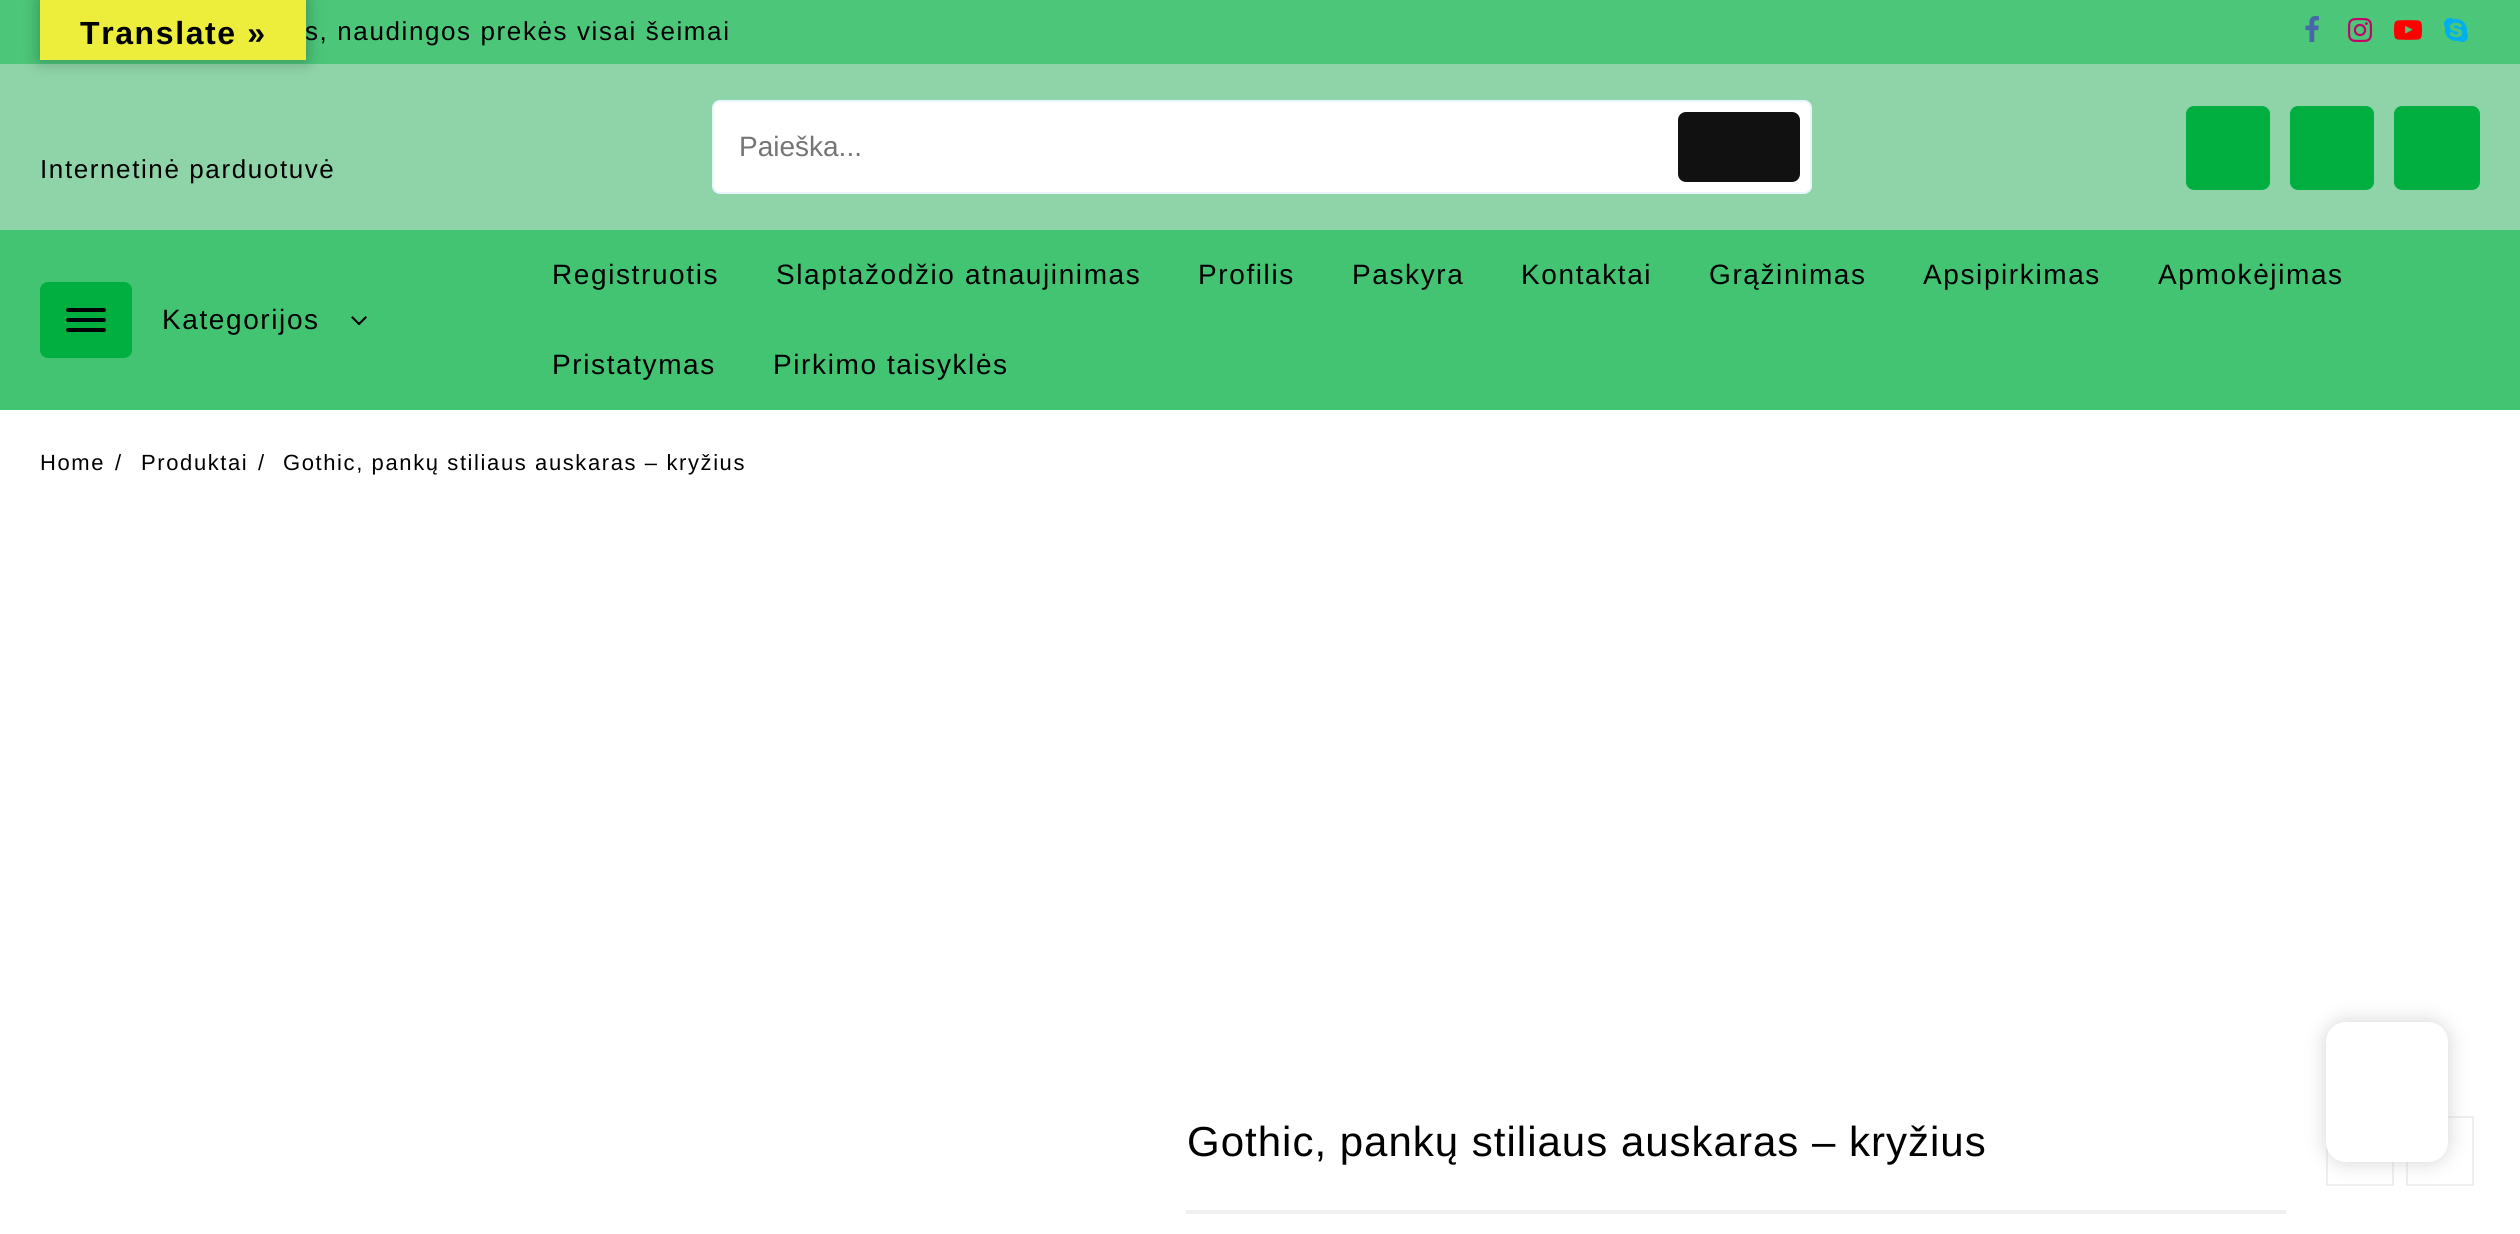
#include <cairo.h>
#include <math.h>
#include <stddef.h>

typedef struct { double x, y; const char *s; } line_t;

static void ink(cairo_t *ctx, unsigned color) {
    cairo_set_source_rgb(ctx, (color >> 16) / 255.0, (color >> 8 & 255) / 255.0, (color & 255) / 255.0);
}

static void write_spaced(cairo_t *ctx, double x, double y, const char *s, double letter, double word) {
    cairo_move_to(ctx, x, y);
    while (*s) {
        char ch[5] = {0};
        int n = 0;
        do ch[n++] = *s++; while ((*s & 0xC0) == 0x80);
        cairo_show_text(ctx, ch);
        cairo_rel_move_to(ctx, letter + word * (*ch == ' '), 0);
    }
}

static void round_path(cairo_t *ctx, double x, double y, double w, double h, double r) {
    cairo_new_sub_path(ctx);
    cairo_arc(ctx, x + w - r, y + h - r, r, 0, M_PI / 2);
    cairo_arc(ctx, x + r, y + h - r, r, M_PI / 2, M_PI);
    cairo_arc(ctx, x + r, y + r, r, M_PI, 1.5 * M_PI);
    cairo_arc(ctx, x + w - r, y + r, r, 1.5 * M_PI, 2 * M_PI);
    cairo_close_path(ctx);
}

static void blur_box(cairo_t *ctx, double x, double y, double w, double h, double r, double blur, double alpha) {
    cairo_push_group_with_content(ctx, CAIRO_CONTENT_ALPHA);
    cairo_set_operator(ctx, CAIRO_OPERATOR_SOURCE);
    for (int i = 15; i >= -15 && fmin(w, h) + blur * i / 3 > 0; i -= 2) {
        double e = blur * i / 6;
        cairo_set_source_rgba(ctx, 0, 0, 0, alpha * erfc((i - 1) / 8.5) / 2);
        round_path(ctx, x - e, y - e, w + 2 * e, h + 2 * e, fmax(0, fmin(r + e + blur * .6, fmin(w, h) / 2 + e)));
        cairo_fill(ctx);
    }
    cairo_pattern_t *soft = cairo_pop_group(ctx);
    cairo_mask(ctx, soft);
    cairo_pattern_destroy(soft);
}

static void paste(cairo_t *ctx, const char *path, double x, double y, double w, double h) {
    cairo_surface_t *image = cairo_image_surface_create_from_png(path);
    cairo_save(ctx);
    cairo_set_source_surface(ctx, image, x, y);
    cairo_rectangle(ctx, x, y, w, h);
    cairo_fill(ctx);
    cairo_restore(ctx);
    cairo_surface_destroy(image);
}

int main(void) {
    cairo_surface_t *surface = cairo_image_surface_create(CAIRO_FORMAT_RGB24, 2520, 1234);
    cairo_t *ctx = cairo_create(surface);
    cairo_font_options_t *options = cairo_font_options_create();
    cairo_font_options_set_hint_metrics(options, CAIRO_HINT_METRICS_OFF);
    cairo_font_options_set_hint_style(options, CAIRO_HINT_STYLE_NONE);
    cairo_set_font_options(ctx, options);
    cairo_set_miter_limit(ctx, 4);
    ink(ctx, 0xFFFFFF);
    cairo_paint(ctx);
    ink(ctx, 0x4CC679);
    cairo_rectangle(ctx, 0, 0, 2520, 64);
    cairo_fill(ctx);
    ink(ctx, 0x8FD4A8);
    cairo_rectangle(ctx, 0, 64, 2520, 166);
    cairo_fill(ctx);
    ink(ctx, 0x000000);
    blur_box(ctx, 40, 0, 266, 60, 0, 9, 0.3);
    cairo_select_font_face(ctx, "Liberation Sans", CAIRO_FONT_SLANT_NORMAL, CAIRO_FONT_WEIGHT_NORMAL);
    cairo_set_font_size(ctx, 26);
    ink(ctx, 0x000000);
    write_spaced(ctx, 305, 40, "s, naudingos prekės visai šeimai", 1.6, 0);
    ink(ctx, 0xEDED3B);
    cairo_rectangle(ctx, 40, 0, 266, 60);
    cairo_fill(ctx);
    cairo_select_font_face(ctx, "Liberation Sans", CAIRO_FONT_SLANT_NORMAL, CAIRO_FONT_WEIGHT_BOLD);
    cairo_set_font_size(ctx, 32);
    ink(ctx, 0x000000);
    write_spaced(ctx, 80, 44, "Translate »", 1.6, 0);
    paste(ctx, "media/1.png", 2305, 16, 14, 26);
    paste(ctx, "media/2.png", 2348, 18, 24, 24);
    paste(ctx, "media/3.png", 2394, 20, 28, 20);
    paste(ctx, "media/4.png", 2444, 18, 24, 24);
    ink(ctx, 0xFFFFFF);
    round_path(ctx, 713, 101, 1098, 92, 7);
    cairo_fill_preserve(ctx);
    ink(ctx, 0xE7F5FF);
    cairo_stroke(ctx);
    cairo_select_font_face(ctx, "Liberation Sans", CAIRO_FONT_SLANT_NORMAL, CAIRO_FONT_WEIGHT_NORMAL);
    cairo_set_font_size(ctx, 28);
    ink(ctx, 0x757575);
    cairo_move_to(ctx, 739, 156);
    cairo_show_text(ctx, "Paieška...");
    ink(ctx, 0x111111);
    round_path(ctx, 1678, 112, 122, 70, 8);
    cairo_fill(ctx);
    ink(ctx, 0x00AF40);
    round_path(ctx, 2186, 106, 84, 84, 8);
    cairo_fill(ctx);
    round_path(ctx, 2290, 106, 84, 84, 8);
    cairo_fill(ctx);
    round_path(ctx, 2394, 106, 86, 84, 8);
    cairo_fill(ctx);
    cairo_set_font_size(ctx, 26);
    ink(ctx, 0x000000);
    write_spaced(ctx, 40, 178, "Internetinė parduotuvė", 1.6, 0);
    ink(ctx, 0x43C472);
    cairo_rectangle(ctx, 0, 230, 2520, 180);
    cairo_fill(ctx);
    ink(ctx, 0x00AF40);
    round_path(ctx, 40, 282, 92, 76, 8);
    cairo_fill(ctx);
    ink(ctx, 0x000000);
    round_path(ctx, 66, 308, 40, 4, 2);
    cairo_fill(ctx);
    round_path(ctx, 66, 318, 40, 4, 2);
    cairo_fill(ctx);
    round_path(ctx, 66, 328, 40, 4, 2);
    cairo_fill(ctx);
    cairo_set_font_size(ctx, 28);
    write_spaced(ctx, 162, 329, "Kategorijos", 1.6, 0);
    paste(ctx, "media/5.png", 351, 316, 16, 10);
    {
        static const line_t items[] = {
            {552, 284, "Registruotis"},
            {776, 284, "Slaptažodžio atnaujinimas"},
            {1198, 284, "Profilis"},
            {1352, 284, "Paskyra"},
            {1521, 284, "Kontaktai"},
            {1709, 284, "Grąžinimas"},
            {1923, 284, "Apsipirkimas"},
            {2158, 284, "Apmokėjimas"},
            {552, 374, "Pristatymas"},
            {773, 374, "Pirkimo taisyklės"},
        };
        for (size_t i = 0; i < sizeof items / sizeof *items; i++) {
            write_spaced(ctx, items[i].x, items[i].y, items[i].s, 1.6, 0);
        }
    }
    cairo_set_font_size(ctx, 22);
    {
        static const line_t items[] = {
            {40, 470, "Home"},
            {115, 470, "/"},
            {141, 470, "Produktai"},
            {258, 470, "/"},
            {283, 470, "Gothic, pankų stiliaus auskaras – kryžius"},
        };
        for (size_t i = 0; i < sizeof items / sizeof *items; i++) {
            write_spaced(ctx, items[i].x, items[i].y, items[i].s, 1.6, 0);
        }
    }
    ink(ctx, 0xF0F0F0);
    cairo_rectangle(ctx, 1186, 1210, 1100, 4);
    cairo_fill(ctx);
    cairo_set_font_size(ctx, 42);
    ink(ctx, 0x000000);
    write_spaced(ctx, 1187, 1156, "Gothic, pankų stiliaus auskaras – kryžius", 1, 0);
    cairo_rectangle(ctx, 2327, 1117, 66, 68);
    ink(ctx, 0xEEEEEE);
    cairo_stroke(ctx);
    cairo_rectangle(ctx, 2407, 1117, 66, 68);
    cairo_stroke(ctx);
    ink(ctx, 0xB7B7B7);
    blur_box(ctx, 2326, 1022, 122, 140, 20, 10, 0.6);
    ink(ctx, 0xFFFFFF);
    round_path(ctx, 2326, 1022, 122, 140, 20);
    cairo_fill(ctx);
    cairo_surface_write_to_png(surface, "image.png");
    cairo_font_options_destroy(options);
    cairo_destroy(ctx);
    cairo_surface_destroy(surface);
    return 0;
}
